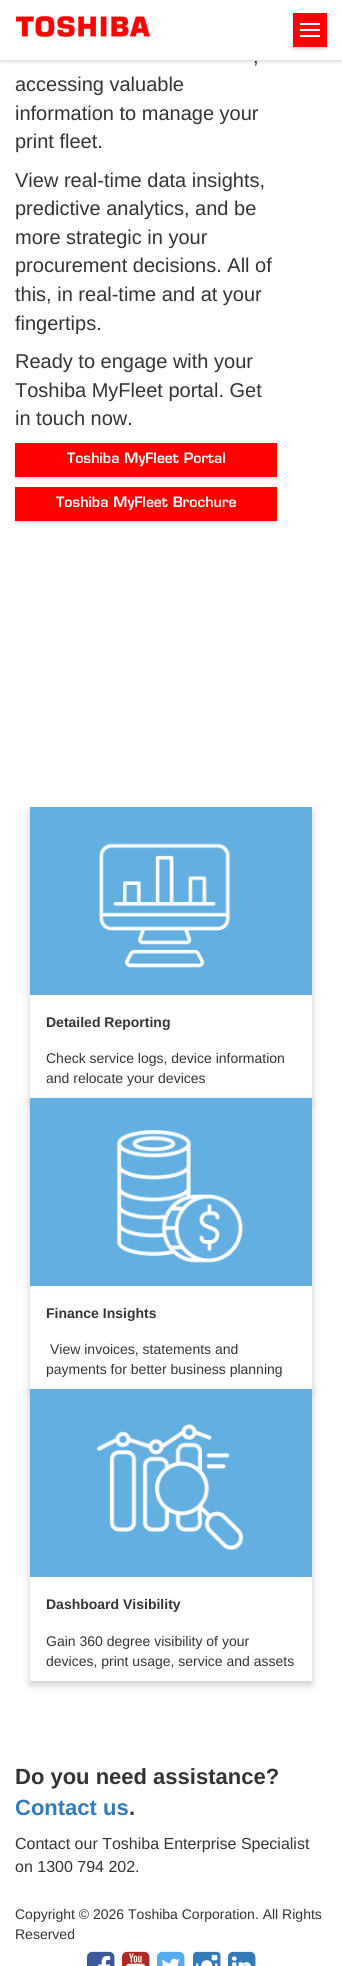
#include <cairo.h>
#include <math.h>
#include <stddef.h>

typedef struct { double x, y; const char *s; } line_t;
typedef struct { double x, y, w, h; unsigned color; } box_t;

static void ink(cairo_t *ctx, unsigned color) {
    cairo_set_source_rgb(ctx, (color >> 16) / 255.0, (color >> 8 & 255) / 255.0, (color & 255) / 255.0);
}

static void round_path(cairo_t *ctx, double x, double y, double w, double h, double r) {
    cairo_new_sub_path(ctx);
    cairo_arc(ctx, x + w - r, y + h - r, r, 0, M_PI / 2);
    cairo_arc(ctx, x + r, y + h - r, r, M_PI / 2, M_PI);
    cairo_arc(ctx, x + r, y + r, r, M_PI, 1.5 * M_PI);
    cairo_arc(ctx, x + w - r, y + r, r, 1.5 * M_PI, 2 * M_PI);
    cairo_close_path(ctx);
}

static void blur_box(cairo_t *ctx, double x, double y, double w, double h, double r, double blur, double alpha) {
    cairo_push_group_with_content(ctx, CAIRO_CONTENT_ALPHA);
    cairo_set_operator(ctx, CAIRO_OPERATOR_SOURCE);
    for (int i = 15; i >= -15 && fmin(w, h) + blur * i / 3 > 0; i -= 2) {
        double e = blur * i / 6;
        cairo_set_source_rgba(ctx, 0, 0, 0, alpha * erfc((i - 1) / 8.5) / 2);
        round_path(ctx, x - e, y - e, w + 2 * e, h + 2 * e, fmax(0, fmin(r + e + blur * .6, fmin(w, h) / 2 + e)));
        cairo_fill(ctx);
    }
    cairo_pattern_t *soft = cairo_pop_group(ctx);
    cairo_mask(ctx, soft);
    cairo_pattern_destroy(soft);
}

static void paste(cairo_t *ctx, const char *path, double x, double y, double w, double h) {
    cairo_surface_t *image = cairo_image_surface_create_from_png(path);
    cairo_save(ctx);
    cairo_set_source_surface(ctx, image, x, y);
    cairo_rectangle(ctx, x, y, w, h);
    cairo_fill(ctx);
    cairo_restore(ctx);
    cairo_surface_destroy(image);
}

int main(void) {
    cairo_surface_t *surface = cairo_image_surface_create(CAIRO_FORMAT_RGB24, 342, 1966);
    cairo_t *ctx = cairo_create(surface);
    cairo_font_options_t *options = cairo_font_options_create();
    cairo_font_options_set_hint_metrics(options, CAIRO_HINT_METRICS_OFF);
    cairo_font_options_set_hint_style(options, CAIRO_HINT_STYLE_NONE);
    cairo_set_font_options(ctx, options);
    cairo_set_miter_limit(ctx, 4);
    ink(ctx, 0xFFFFFF);
    cairo_paint(ctx);
    ink(ctx, 0x323232);
    blur_box(ctx, 0, 2, 342, 60, 0, 1.5, 0.16);
    ink(ctx, 0xFFFFFF);
    cairo_rectangle(ctx, 0, 0, 342, 60);
    cairo_fill(ctx);
    paste(ctx, "media/1.png", 16, 16, 134, 21);
    ink(ctx, 0x323232);
    blur_box(ctx, 293, 15, 34, 34, 0, 1.5, 0.2);
    {
        static const box_t items[] = {
            {293, 13, 34, 34, 0xFF0000},
            {300, 23, 20, 2, 0xFFFFFF},
            {300, 29, 20, 2, 0xFFFFFF},
            {300, 35, 20, 2, 0xFFFFFF},
        };
        for (size_t i = 0; i < sizeof items / sizeof *items; i++) {
            ink(ctx, items[i].color);
            cairo_rectangle(ctx, items[i].x, items[i].y, items[i].w, items[i].h);
            cairo_fill(ctx);
        }
    }
    cairo_select_font_face(ctx, "Liberation Sans", CAIRO_FONT_SLANT_NORMAL, CAIRO_FONT_WEIGHT_NORMAL);
    cairo_set_font_size(ctx, 20);
    ink(ctx, 0x333333);
    {
        static const line_t items[] = {
            {253, 63, ","},
            {15, 91, "accessing valuable"},
            {15, 120, "information to manage your"},
            {15, 148, "print fleet."},
            {15, 187, "View real-time data insights,"},
            {15, 215, "predictive analytics, and be"},
            {15, 244, "more strategic in your"},
            {15, 272, "procurement decisions. All of"},
            {15, 301, "this, in real-time and at your"},
            {15, 330, "fingertips."},
            {15, 368, "Ready to engage with your"},
            {15, 397, "Toshiba MyFleet portal. Get"},
            {15, 425, "in touch now."},
        };
        for (size_t i = 0; i < sizeof items / sizeof *items; i++) {
            cairo_move_to(ctx, items[i].x, items[i].y);
            cairo_show_text(ctx, items[i].s);
        }
    }
    ink(ctx, 0x323232);
    blur_box(ctx, 15, 445, 262, 34, 0, 1.5, 0.2);
    ink(ctx, 0xFF0000);
    cairo_rectangle(ctx, 15, 443, 262, 34);
    cairo_fill(ctx);
    cairo_select_font_face(ctx, "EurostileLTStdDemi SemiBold", CAIRO_FONT_SLANT_NORMAL, CAIRO_FONT_WEIGHT_NORMAL);
    cairo_set_font_size(ctx, 14);
    ink(ctx, 0xFFFFFF);
    cairo_move_to(ctx, 67, 463);
    cairo_show_text(ctx, "Toshiba MyFleet Portal");
    ink(ctx, 0x323232);
    blur_box(ctx, 15, 489, 262, 34, 0, 1.5, 0.2);
    ink(ctx, 0xFF0000);
    cairo_rectangle(ctx, 15, 487, 262, 34);
    cairo_fill(ctx);
    ink(ctx, 0xFFFFFF);
    cairo_move_to(ctx, 56, 507);
    cairo_show_text(ctx, "Toshiba MyFleet Brochure");
    cairo_save(ctx);
    cairo_set_fill_rule(ctx, CAIRO_FILL_RULE_EVEN_ODD);
    cairo_new_path(ctx);
    cairo_move_to(ctx, 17, 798);
    cairo_line_to(ctx, 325, 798);
    cairo_line_to(ctx, 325, 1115);
    cairo_line_to(ctx, 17, 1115);
    cairo_close_path(ctx);
    cairo_move_to(ctx, 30, 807);
    cairo_line_to(ctx, 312, 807);
    cairo_line_to(ctx, 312, 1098);
    cairo_line_to(ctx, 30, 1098);
    cairo_close_path(ctx);
    cairo_clip(ctx);
    ink(ctx, 0x000000);
    blur_box(ctx, 30, 811, 282, 291, 0, 4, 0.2);
    cairo_restore(ctx);
    paste(ctx, "media/2.png", 30, 807, 282, 188);
    cairo_select_font_face(ctx, "Liberation Sans", CAIRO_FONT_SLANT_NORMAL, CAIRO_FONT_WEIGHT_BOLD);
    ink(ctx, 0x333333);
    cairo_move_to(ctx, 46, 1027);
    cairo_show_text(ctx, "Detailed Reporting");
    cairo_select_font_face(ctx, "Liberation Sans", CAIRO_FONT_SLANT_NORMAL, CAIRO_FONT_WEIGHT_NORMAL);
    cairo_move_to(ctx, 46, 1063);
    cairo_show_text(ctx, "Check service logs, device information");
    cairo_move_to(ctx, 46, 1083);
    cairo_show_text(ctx, "and relocate your devices");
    cairo_save(ctx);
    cairo_set_fill_rule(ctx, CAIRO_FILL_RULE_EVEN_ODD);
    cairo_new_path(ctx);
    cairo_move_to(ctx, 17, 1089);
    cairo_line_to(ctx, 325, 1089);
    cairo_line_to(ctx, 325, 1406);
    cairo_line_to(ctx, 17, 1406);
    cairo_close_path(ctx);
    cairo_move_to(ctx, 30, 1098);
    cairo_line_to(ctx, 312, 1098);
    cairo_line_to(ctx, 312, 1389);
    cairo_line_to(ctx, 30, 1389);
    cairo_close_path(ctx);
    cairo_clip(ctx);
    ink(ctx, 0x000000);
    blur_box(ctx, 30, 1102, 282, 291, 0, 4, 0.2);
    cairo_restore(ctx);
    paste(ctx, "media/3.png", 30, 1098, 282, 188);
    cairo_select_font_face(ctx, "Liberation Sans", CAIRO_FONT_SLANT_NORMAL, CAIRO_FONT_WEIGHT_BOLD);
    cairo_move_to(ctx, 46, 1318);
    cairo_show_text(ctx, "Finance Insights");
    cairo_select_font_face(ctx, "Liberation Sans", CAIRO_FONT_SLANT_NORMAL, CAIRO_FONT_WEIGHT_NORMAL);
    cairo_move_to(ctx, 50, 1354);
    cairo_show_text(ctx, "View invoices, statements and");
    cairo_move_to(ctx, 46, 1374);
    cairo_show_text(ctx, "payments for better business planning");
    cairo_save(ctx);
    cairo_set_fill_rule(ctx, CAIRO_FILL_RULE_EVEN_ODD);
    cairo_new_path(ctx);
    cairo_move_to(ctx, 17, 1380);
    cairo_line_to(ctx, 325, 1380);
    cairo_line_to(ctx, 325, 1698);
    cairo_line_to(ctx, 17, 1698);
    cairo_close_path(ctx);
    cairo_move_to(ctx, 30, 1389);
    cairo_line_to(ctx, 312, 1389);
    cairo_line_to(ctx, 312, 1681);
    cairo_line_to(ctx, 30, 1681);
    cairo_close_path(ctx);
    cairo_clip(ctx);
    ink(ctx, 0x000000);
    blur_box(ctx, 30, 1393, 282, 292, 0, 4, 0.2);
    cairo_restore(ctx);
    paste(ctx, "media/4.png", 30, 1389, 282, 188);
    cairo_select_font_face(ctx, "Liberation Sans", CAIRO_FONT_SLANT_NORMAL, CAIRO_FONT_WEIGHT_BOLD);
    cairo_move_to(ctx, 46, 1609);
    cairo_show_text(ctx, "Dashboard Visibility");
    cairo_select_font_face(ctx, "Liberation Sans", CAIRO_FONT_SLANT_NORMAL, CAIRO_FONT_WEIGHT_NORMAL);
    cairo_move_to(ctx, 46, 1646);
    cairo_show_text(ctx, "Gain 360 degree visibility of your");
    cairo_move_to(ctx, 46, 1666);
    cairo_show_text(ctx, "devices, print usage, service and assets");
    cairo_select_font_face(ctx, "Liberation Sans", CAIRO_FONT_SLANT_NORMAL, CAIRO_FONT_WEIGHT_BOLD);
    cairo_set_font_size(ctx, 22);
    cairo_move_to(ctx, 15, 1784);
    cairo_show_text(ctx, "Do you need assistance?");
    ink(ctx, 0x337AB7);
    cairo_move_to(ctx, 15, 1815);
    cairo_show_text(ctx, "Contact us");
    ink(ctx, 0x333333);
    cairo_move_to(ctx, 129, 1815);
    cairo_show_text(ctx, ".");
    cairo_select_font_face(ctx, "Liberation Sans", CAIRO_FONT_SLANT_NORMAL, CAIRO_FONT_WEIGHT_NORMAL);
    cairo_set_font_size(ctx, 16);
    cairo_move_to(ctx, 15, 1849);
    cairo_show_text(ctx, "Contact our Toshiba Enterprise Specialist");
    cairo_move_to(ctx, 15, 1872);
    cairo_show_text(ctx, "on 1300 794 202.");
    cairo_set_font_size(ctx, 14);
    cairo_move_to(ctx, 15, 1919);
    cairo_show_text(ctx, "Copyright © 2026 Toshiba Corporation. All Rights");
    cairo_move_to(ctx, 15, 1939);
    cairo_show_text(ctx, "Reserved");
    paste(ctx, "media/5.png", 87, 1951, 28, 15);
    paste(ctx, "media/6.png", 122, 1951, 28, 15);
    paste(ctx, "media/7.png", 157, 1951, 28, 15);
    paste(ctx, "media/8.png", 193, 1951, 28, 15);
    paste(ctx, "media/9.png", 228, 1951, 28, 15);
    cairo_surface_write_to_png(surface, "image.png");
    cairo_font_options_destroy(options);
    cairo_destroy(ctx);
    cairo_surface_destroy(surface);
    return 0;
}
